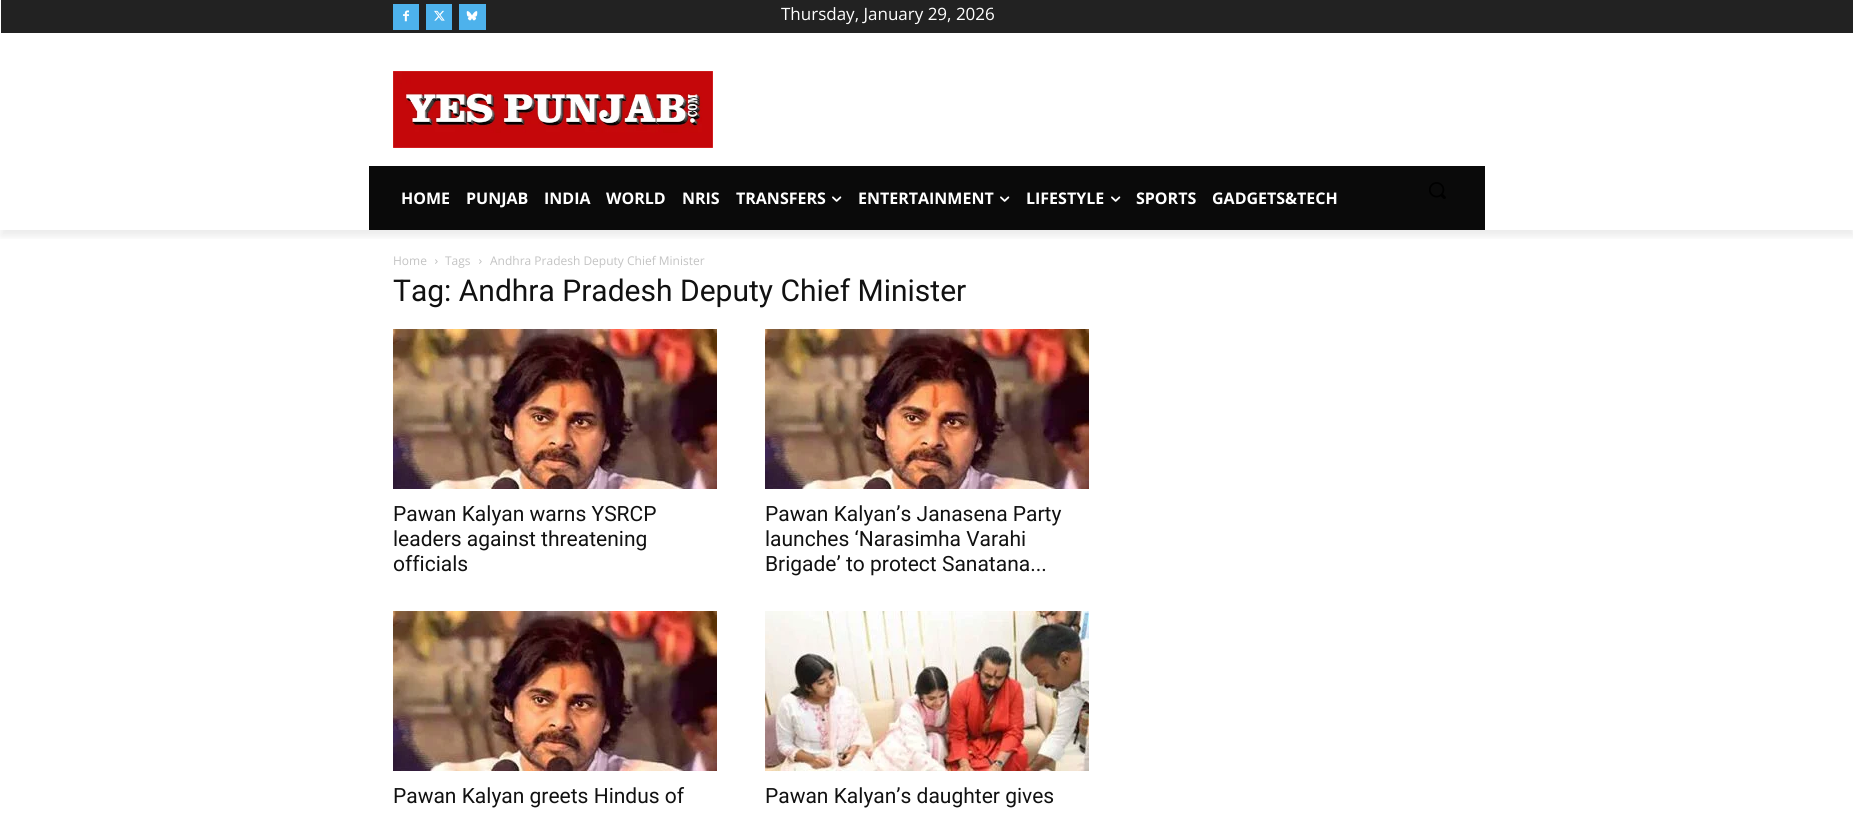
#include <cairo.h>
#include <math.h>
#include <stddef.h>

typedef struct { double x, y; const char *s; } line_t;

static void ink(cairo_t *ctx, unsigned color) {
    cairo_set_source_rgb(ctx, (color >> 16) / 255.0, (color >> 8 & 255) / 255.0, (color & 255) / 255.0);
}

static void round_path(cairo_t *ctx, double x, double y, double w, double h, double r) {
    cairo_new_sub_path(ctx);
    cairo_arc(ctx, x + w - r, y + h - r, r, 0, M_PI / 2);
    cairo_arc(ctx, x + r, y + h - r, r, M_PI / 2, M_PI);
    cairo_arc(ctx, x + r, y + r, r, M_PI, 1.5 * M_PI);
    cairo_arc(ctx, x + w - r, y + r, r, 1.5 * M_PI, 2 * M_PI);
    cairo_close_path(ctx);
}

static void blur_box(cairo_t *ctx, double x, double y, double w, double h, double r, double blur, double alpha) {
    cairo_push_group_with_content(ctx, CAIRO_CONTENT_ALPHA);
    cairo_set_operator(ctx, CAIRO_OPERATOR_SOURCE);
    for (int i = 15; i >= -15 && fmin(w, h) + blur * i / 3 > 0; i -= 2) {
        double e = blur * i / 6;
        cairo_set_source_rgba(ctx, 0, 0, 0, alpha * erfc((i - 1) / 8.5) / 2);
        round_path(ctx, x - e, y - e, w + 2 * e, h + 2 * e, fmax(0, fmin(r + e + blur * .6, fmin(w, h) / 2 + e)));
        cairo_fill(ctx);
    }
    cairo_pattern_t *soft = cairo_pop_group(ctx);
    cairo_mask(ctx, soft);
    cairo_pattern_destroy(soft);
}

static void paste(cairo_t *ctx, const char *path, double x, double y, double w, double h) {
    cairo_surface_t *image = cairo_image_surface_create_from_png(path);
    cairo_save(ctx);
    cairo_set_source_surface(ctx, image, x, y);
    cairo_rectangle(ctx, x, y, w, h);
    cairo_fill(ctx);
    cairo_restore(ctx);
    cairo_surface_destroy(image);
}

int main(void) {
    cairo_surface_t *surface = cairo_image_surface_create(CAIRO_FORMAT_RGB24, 1853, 815);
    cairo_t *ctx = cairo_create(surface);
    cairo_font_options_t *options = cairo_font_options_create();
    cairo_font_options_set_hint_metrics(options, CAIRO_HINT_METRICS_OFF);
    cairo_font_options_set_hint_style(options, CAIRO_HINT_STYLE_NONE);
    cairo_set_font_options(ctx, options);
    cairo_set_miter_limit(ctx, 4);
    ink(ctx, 0xFFFFFF);
    cairo_paint(ctx);
    ink(ctx, 0x222222);
    cairo_rectangle(ctx, 1, 0, 1852, 33);
    cairo_fill(ctx);
    ink(ctx, 0x4DB2EC);
    cairo_rectangle(ctx, 393, 4, 26, 26);
    cairo_fill(ctx);
    paste(ctx, "media/1.png", 403, 10, 6, 12);
    cairo_rectangle(ctx, 426, 4, 26, 26);
    cairo_fill(ctx);
    paste(ctx, "media/2.png", 434, 10, 11, 11);
    cairo_rectangle(ctx, 459, 4, 27, 26);
    cairo_fill(ctx);
    paste(ctx, "media/3.png", 466, 11, 12, 10);
    paste(ctx, "media/4.png", 393, 71, 320, 77);
    ink(ctx, 0x0A0A0A);
    cairo_rectangle(ctx, 369, 166, 1116, 64);
    cairo_fill(ctx);
    cairo_save(ctx);
    cairo_rectangle(ctx, 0, 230, 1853, 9);
    cairo_clip(ctx);
    ink(ctx, 0x000000);
    blur_box(ctx, 1, 6, 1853, 230, 0, 4, 0.08);
    cairo_restore(ctx);
    cairo_select_font_face(ctx, "Open Sans", CAIRO_FONT_SLANT_NORMAL, CAIRO_FONT_WEIGHT_NORMAL);
    cairo_set_font_size(ctx, 17);
    ink(ctx, 0xFFFFFF);
    cairo_move_to(ctx, 781, 20);
    cairo_show_text(ctx, "Thursday, January 29, 2026");
    cairo_select_font_face(ctx, "Open Sans", CAIRO_FONT_SLANT_NORMAL, CAIRO_FONT_WEIGHT_BOLD);
    cairo_set_font_size(ctx, 16);
    {
        static const line_t items[] = {
            {401, 204, "HOME"},
            {466, 204, "PUNJAB"},
            {544, 204, "INDIA"},
            {606, 204, "WORLD"},
            {682, 204, "NRIS"},
            {736, 204, "TRANSFERS"},
        };
        for (size_t i = 0; i < sizeof items / sizeof *items; i++) {
            cairo_move_to(ctx, items[i].x, items[i].y);
            cairo_show_text(ctx, items[i].s);
        }
    }
    paste(ctx, "media/5.png", 832, 196, 10, 6);
    cairo_move_to(ctx, 858, 204);
    cairo_show_text(ctx, "ENTERTAINMENT");
    paste(ctx, "media/5.png", 1000, 196, 10, 6);
    cairo_move_to(ctx, 1026, 204);
    cairo_show_text(ctx, "LIFESTYLE");
    paste(ctx, "media/5.png", 1111, 196, 10, 6);
    cairo_move_to(ctx, 1136, 204);
    cairo_show_text(ctx, "SPORTS");
    cairo_move_to(ctx, 1212, 204);
    cairo_show_text(ctx, "GADGETS&TECH");
    paste(ctx, "media/6.png", 1429, 182, 17, 17);
    cairo_select_font_face(ctx, "Open Sans", CAIRO_FONT_SLANT_NORMAL, CAIRO_FONT_WEIGHT_NORMAL);
    cairo_set_font_size(ctx, 12);
    ink(ctx, 0xC3C3C3);
    cairo_move_to(ctx, 393, 265);
    cairo_show_text(ctx, "Home");
    paste(ctx, "media/7.png", 435, 259, 3, 5);
    cairo_move_to(ctx, 445, 265);
    cairo_show_text(ctx, "Tags");
    paste(ctx, "media/7.png", 479, 259, 3, 5);
    cairo_move_to(ctx, 490, 265);
    cairo_show_text(ctx, "Andhra Pradesh Deputy Chief Minister");
    cairo_select_font_face(ctx, "Roboto", CAIRO_FONT_SLANT_NORMAL, CAIRO_FONT_WEIGHT_NORMAL);
    cairo_set_font_size(ctx, 30);
    ink(ctx, 0x111111);
    cairo_move_to(ctx, 393, 301);
    cairo_show_text(ctx, "Tag: Andhra Pradesh Deputy Chief Minister");
    paste(ctx, "media/8.png", 393, 329, 324, 160);
    cairo_set_font_size(ctx, 21);
    {
        static const line_t items[] = {
            {393, 521, "Pawan Kalyan warns YSRCP"},
            {393, 546, "leaders against threatening"},
            {393, 571, "officials"},
        };
        for (size_t i = 0; i < sizeof items / sizeof *items; i++) {
            cairo_move_to(ctx, items[i].x, items[i].y);
            cairo_show_text(ctx, items[i].s);
        }
    }
    paste(ctx, "media/8.png", 765, 329, 324, 160);
    {
        static const line_t items[] = {
            {765, 521, "Pawan Kalyan’s Janasena Party"},
            {765, 546, "launches ‘Narasimha Varahi"},
            {765, 571, "Brigade’ to protect Sanatana..."},
        };
        for (size_t i = 0; i < sizeof items / sizeof *items; i++) {
            cairo_move_to(ctx, items[i].x, items[i].y);
            cairo_show_text(ctx, items[i].s);
        }
    }
    paste(ctx, "media/8.png", 393, 611, 324, 160);
    cairo_move_to(ctx, 393, 803);
    cairo_show_text(ctx, "Pawan Kalyan greets Hindus of");
    paste(ctx, "media/9.png", 765, 611, 324, 160);
    cairo_move_to(ctx, 765, 803);
    cairo_show_text(ctx, "Pawan Kalyan’s daughter gives");
    cairo_surface_write_to_png(surface, "image.png");
    cairo_font_options_destroy(options);
    cairo_destroy(ctx);
    cairo_surface_destroy(surface);
    return 0;
}
